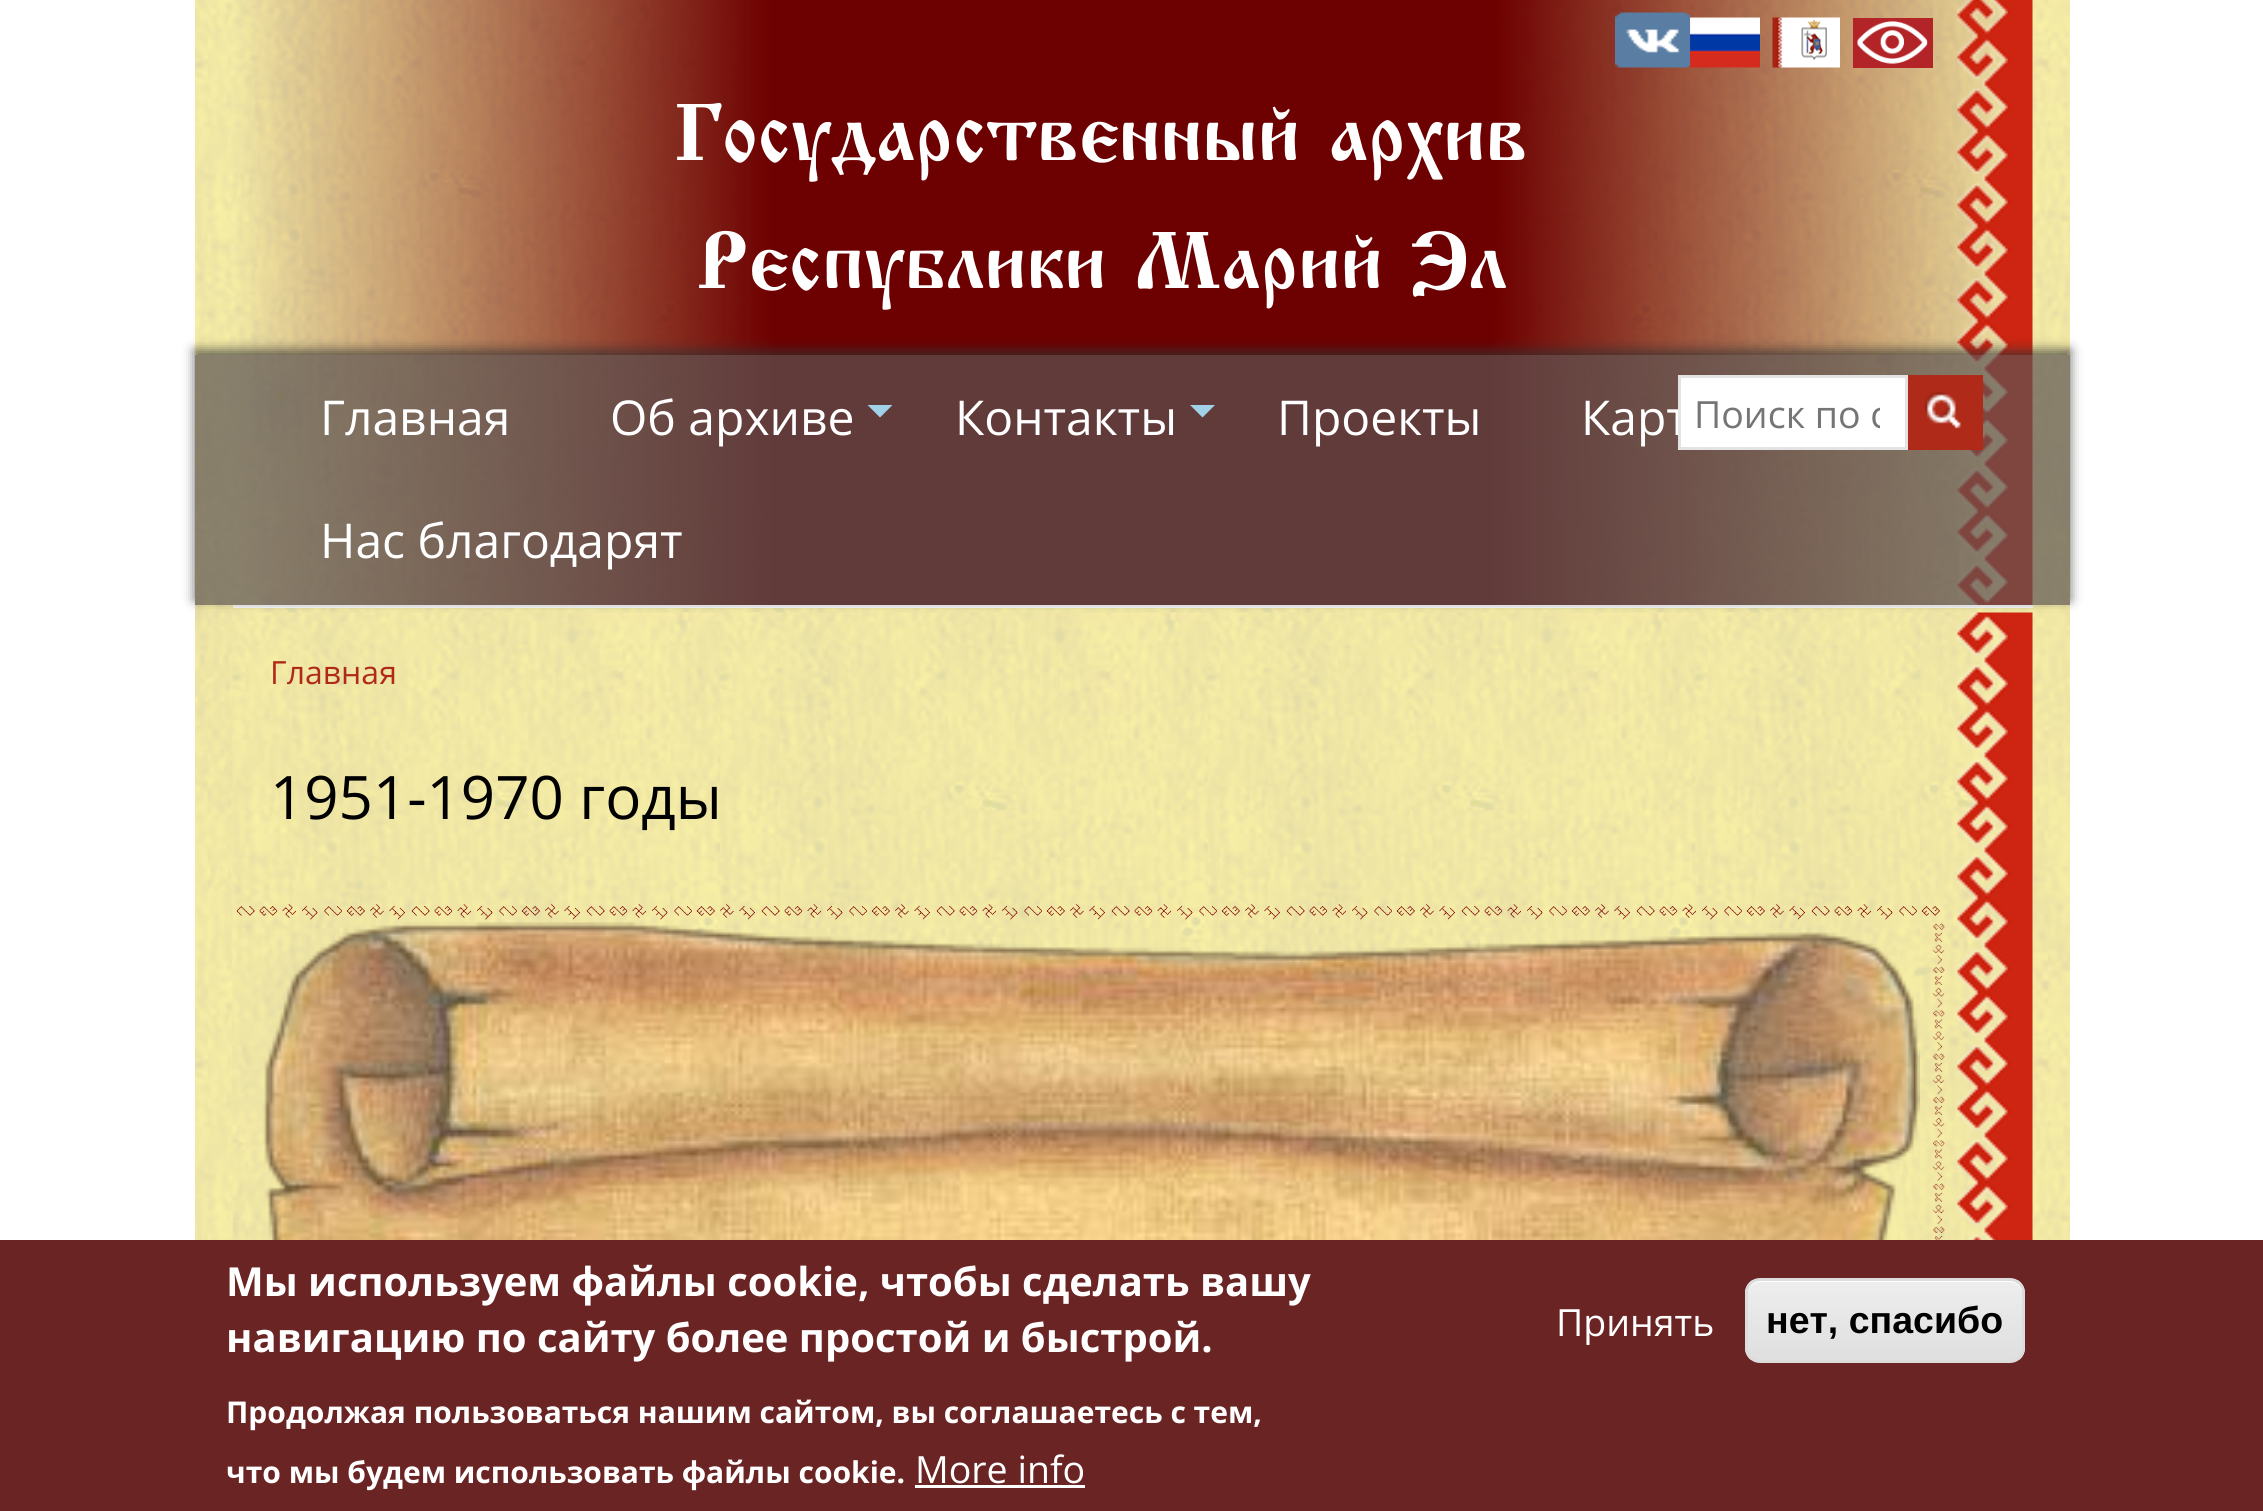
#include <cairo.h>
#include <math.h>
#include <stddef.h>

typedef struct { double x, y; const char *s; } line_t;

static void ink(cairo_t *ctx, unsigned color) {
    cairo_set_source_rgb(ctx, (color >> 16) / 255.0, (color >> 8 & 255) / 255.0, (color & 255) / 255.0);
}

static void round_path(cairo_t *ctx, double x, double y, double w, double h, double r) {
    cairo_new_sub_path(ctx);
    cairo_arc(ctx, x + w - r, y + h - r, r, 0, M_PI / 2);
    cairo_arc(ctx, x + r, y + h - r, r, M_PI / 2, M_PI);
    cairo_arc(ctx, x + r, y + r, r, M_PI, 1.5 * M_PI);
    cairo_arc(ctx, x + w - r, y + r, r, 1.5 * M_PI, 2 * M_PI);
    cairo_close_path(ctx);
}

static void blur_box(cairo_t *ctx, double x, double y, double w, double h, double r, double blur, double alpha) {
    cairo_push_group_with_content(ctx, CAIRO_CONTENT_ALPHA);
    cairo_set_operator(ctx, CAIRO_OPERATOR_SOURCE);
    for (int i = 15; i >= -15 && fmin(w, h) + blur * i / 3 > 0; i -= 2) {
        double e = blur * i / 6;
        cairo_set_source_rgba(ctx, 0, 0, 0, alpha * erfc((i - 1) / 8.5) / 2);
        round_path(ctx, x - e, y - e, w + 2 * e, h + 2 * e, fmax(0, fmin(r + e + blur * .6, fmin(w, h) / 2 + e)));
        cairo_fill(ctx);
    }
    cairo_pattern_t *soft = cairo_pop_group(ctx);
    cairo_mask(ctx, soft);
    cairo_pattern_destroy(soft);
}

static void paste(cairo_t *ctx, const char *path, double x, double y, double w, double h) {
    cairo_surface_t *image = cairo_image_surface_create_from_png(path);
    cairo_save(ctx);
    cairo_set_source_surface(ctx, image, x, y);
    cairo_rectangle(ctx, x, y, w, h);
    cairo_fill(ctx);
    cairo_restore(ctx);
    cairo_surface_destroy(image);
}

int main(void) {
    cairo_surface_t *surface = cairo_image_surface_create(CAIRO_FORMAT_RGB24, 2263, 1511);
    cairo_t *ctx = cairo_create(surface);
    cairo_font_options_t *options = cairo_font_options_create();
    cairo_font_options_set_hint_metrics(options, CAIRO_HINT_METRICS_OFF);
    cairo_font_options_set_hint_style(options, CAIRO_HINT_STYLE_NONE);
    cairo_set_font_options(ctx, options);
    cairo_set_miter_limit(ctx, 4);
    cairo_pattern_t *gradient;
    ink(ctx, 0xFFFFFF);
    cairo_paint(ctx);
    paste(ctx, "media/1.png", 195, 0, 1875, 1240);
    ink(ctx, 0xF7F7F7);
    cairo_rectangle(ctx, 233, 605, 1800, 3);
    cairo_fill(ctx);
    paste(ctx, "media/2.png", 1957, 0, 76, 605);
    paste(ctx, "media/3.png", 1615, 12, 75, 56);
    paste(ctx, "media/4.png", 1690, 17, 70, 51);
    paste(ctx, "media/5.png", 1772, 17, 68, 51);
    ink(ctx, 0xB32428);
    cairo_rectangle(ctx, 1853, 18, 80, 50);
    cairo_fill(ctx);
    paste(ctx, "media/6.png", 1857, 21, 71, 43);
    cairo_select_font_face(ctx, "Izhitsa", CAIRO_FONT_SLANT_NORMAL, CAIRO_FONT_WEIGHT_NORMAL);
    cairo_set_font_size(ctx, 80);
    ink(ctx, 0xFFFFFF);
    cairo_move_to(ctx, 674, 160);
    cairo_show_text(ctx, "Государственный архив");
    cairo_move_to(ctx, 696, 288);
    cairo_show_text(ctx, "Республики Марий Эл");
    cairo_save(ctx);
    cairo_set_fill_rule(ctx, CAIRO_FILL_RULE_EVEN_ODD);
    cairo_new_path(ctx);
    cairo_move_to(ctx, 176, 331);
    cairo_line_to(ctx, 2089, 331);
    cairo_line_to(ctx, 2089, 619);
    cairo_line_to(ctx, 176, 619);
    cairo_close_path(ctx);
    cairo_move_to(ctx, 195, 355);
    cairo_line_to(ctx, 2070, 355);
    cairo_line_to(ctx, 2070, 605);
    cairo_line_to(ctx, 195, 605);
    cairo_close_path(ctx);
    cairo_clip(ctx);
    ink(ctx, 0x323232);
    blur_box(ctx, 195, 350, 1875, 250, 0, 6, 0.75);
    cairo_restore(ctx);
    cairo_set_source_rgba(ctx, 0.365, 0.333, 0.329, 0.7);
    cairo_rectangle(ctx, 195, 355, 1875, 250);
    cairo_fill(ctx);
    cairo_select_font_face(ctx, "Open Sans", CAIRO_FONT_SLANT_NORMAL, CAIRO_FONT_WEIGHT_NORMAL);
    cairo_set_font_size(ctx, 48);
    ink(ctx, 0xFFFFFF);
    cairo_move_to(ctx, 320, 435);
    cairo_show_text(ctx, "Главная");
    cairo_move_to(ctx, 610, 435);
    cairo_show_text(ctx, "Об архиве");
    ink(ctx, 0xA1D1E8);
    cairo_new_path(ctx);
    cairo_move_to(ctx, 867.5, 405);
    cairo_line_to(ctx, 892.5, 405);
    cairo_line_to(ctx, 880, 417.5);
    cairo_close_path(ctx);
    cairo_fill(ctx);
    ink(ctx, 0xFFFFFF);
    cairo_move_to(ctx, 955, 435);
    cairo_show_text(ctx, "Контакты");
    ink(ctx, 0xA1D1E8);
    cairo_new_path(ctx);
    cairo_move_to(ctx, 1190, 405);
    cairo_line_to(ctx, 1215, 405);
    cairo_line_to(ctx, 1202.5, 417.5);
    cairo_close_path(ctx);
    cairo_fill(ctx);
    ink(ctx, 0xFFFFFF);
    {
        static const line_t items[] = {
            {1277, 435, "Проекты"},
            {1581, 435, "Карт"},
            {320, 558, "Нас благодарят"},
        };
        for (size_t i = 0; i < sizeof items / sizeof *items; i++) {
            cairo_move_to(ctx, items[i].x, items[i].y);
            cairo_show_text(ctx, items[i].s);
        }
    }
    cairo_rectangle(ctx, 1679.5, 376.5, 227, 72);
    cairo_fill_preserve(ctx);
    ink(ctx, 0xE3E3E3);
    cairo_set_line_width(ctx, 3);
    cairo_stroke(ctx);
    cairo_save(ctx);
    cairo_rectangle(ctx, 1695, 388, 185, 50);
    cairo_clip(ctx);
    cairo_set_font_size(ctx, 37.5);
    ink(ctx, 0x757575);
    cairo_move_to(ctx, 1694, 428);
    cairo_show_text(ctx, "Поиск по с");
    cairo_restore(ctx);
    ink(ctx, 0xB02A19);
    cairo_rectangle(ctx, 1908, 375, 75, 75);
    cairo_fill(ctx);
    paste(ctx, "media/7.png", 1924, 392, 37, 37);
    paste(ctx, "media/8.png", 232, 612, 1801, 628);
    cairo_set_font_size(ctx, 32);
    cairo_move_to(ctx, 270, 684);
    cairo_show_text(ctx, "Главная");
    cairo_set_font_size(ctx, 60);
    ink(ctx, 0x000000);
    cairo_move_to(ctx, 270, 819);
    cairo_show_text(ctx, "1951-1970 годы");
    paste(ctx, "media/9.png", 236, 904, 1704, 16);
    paste(ctx, "media/10.png", 1932, 923, 13, 317);
    paste(ctx, "media/11.png", 262, 922, 1658, 318);
    ink(ctx, 0x6B2424);
    cairo_rectangle(ctx, 0, 1240, 2263, 271);
    cairo_fill(ctx);
    cairo_select_font_face(ctx, "Open Sans", CAIRO_FONT_SLANT_NORMAL, CAIRO_FONT_WEIGHT_BOLD);
    cairo_set_font_size(ctx, 40);
    ink(ctx, 0xFFFFFF);
    cairo_move_to(ctx, 226, 1296);
    cairo_show_text(ctx, "Мы используем файлы cookie, чтобы сделать вашу");
    cairo_move_to(ctx, 226, 1352);
    cairo_show_text(ctx, "навигацию по сайту более простой и быстрой.");
    cairo_set_font_size(ctx, 30);
    cairo_move_to(ctx, 226, 1423);
    cairo_show_text(ctx, "Продолжая пользоваться нашим сайтом, вы соглашаетесь с тем,");
    cairo_move_to(ctx, 226, 1483);
    cairo_show_text(ctx, "что мы будем использовать файлы cookie.");
    cairo_select_font_face(ctx, "Open Sans", CAIRO_FONT_SLANT_NORMAL, CAIRO_FONT_WEIGHT_NORMAL);
    cairo_set_font_size(ctx, 37.5);
    cairo_move_to(ctx, 915, 1483);
    cairo_show_text(ctx, "More info");
    cairo_rectangle(ctx, 915, 1485, 170, 3);
    cairo_fill(ctx);
    cairo_move_to(ctx, 1556, 1336);
    cairo_show_text(ctx, "Принять");
    cairo_save(ctx);
    round_path(ctx, 1745, 1278, 280, 85, 15);
    cairo_clip(ctx);
    gradient = cairo_pattern_create_linear(1885, 1280, 1885, 1360);
    cairo_pattern_add_color_stop_rgba(gradient, 0.05, 0.929, 0.929, 0.929, 1);
    cairo_pattern_add_color_stop_rgba(gradient, 1, 0.875, 0.875, 0.875, 1);
    cairo_set_source(ctx, gradient);
    cairo_pattern_destroy(gradient);
    cairo_rectangle(ctx, 1745, 1280, 280, 80);
    cairo_fill(ctx);
    cairo_restore(ctx);
    cairo_new_path(ctx);
    cairo_move_to(ctx, 1760, 1282);
    cairo_line_to(ctx, 2010, 1282);
    cairo_curve_to(ctx, 2017, 1282, 2022, 1288, 2022, 1295);
    cairo_line_to(ctx, 2022, 1353);
    cairo_curve_to(ctx, 2023, 1351, 2023, 1349, 2023, 1347);
    cairo_line_to(ctx, 2023, 1293);
    cairo_curve_to(ctx, 2023, 1286, 2017, 1280, 2010, 1280);
    cairo_line_to(ctx, 1761, 1280);
    cairo_curve_to(ctx, 1754, 1280, 1748, 1286, 1748, 1293);
    cairo_line_to(ctx, 1748, 1295);
    cairo_curve_to(ctx, 1748, 1288, 1753, 1282, 1760, 1282);
    cairo_close_path(ctx);
    cairo_fill(ctx);
    round_path(ctx, 1746.5, 1279.5, 277, 82, 13.5);
    ink(ctx, 0xDCDCDC);
    cairo_stroke(ctx);
    cairo_select_font_face(ctx, "Liberation Sans", CAIRO_FONT_SLANT_NORMAL, CAIRO_FONT_WEIGHT_BOLD);
    ink(ctx, 0x000000);
    cairo_move_to(ctx, 1766, 1333);
    cairo_show_text(ctx, "нет, спасибо");
    cairo_surface_write_to_png(surface, "image.png");
    cairo_font_options_destroy(options);
    cairo_destroy(ctx);
    cairo_surface_destroy(surface);
    return 0;
}
